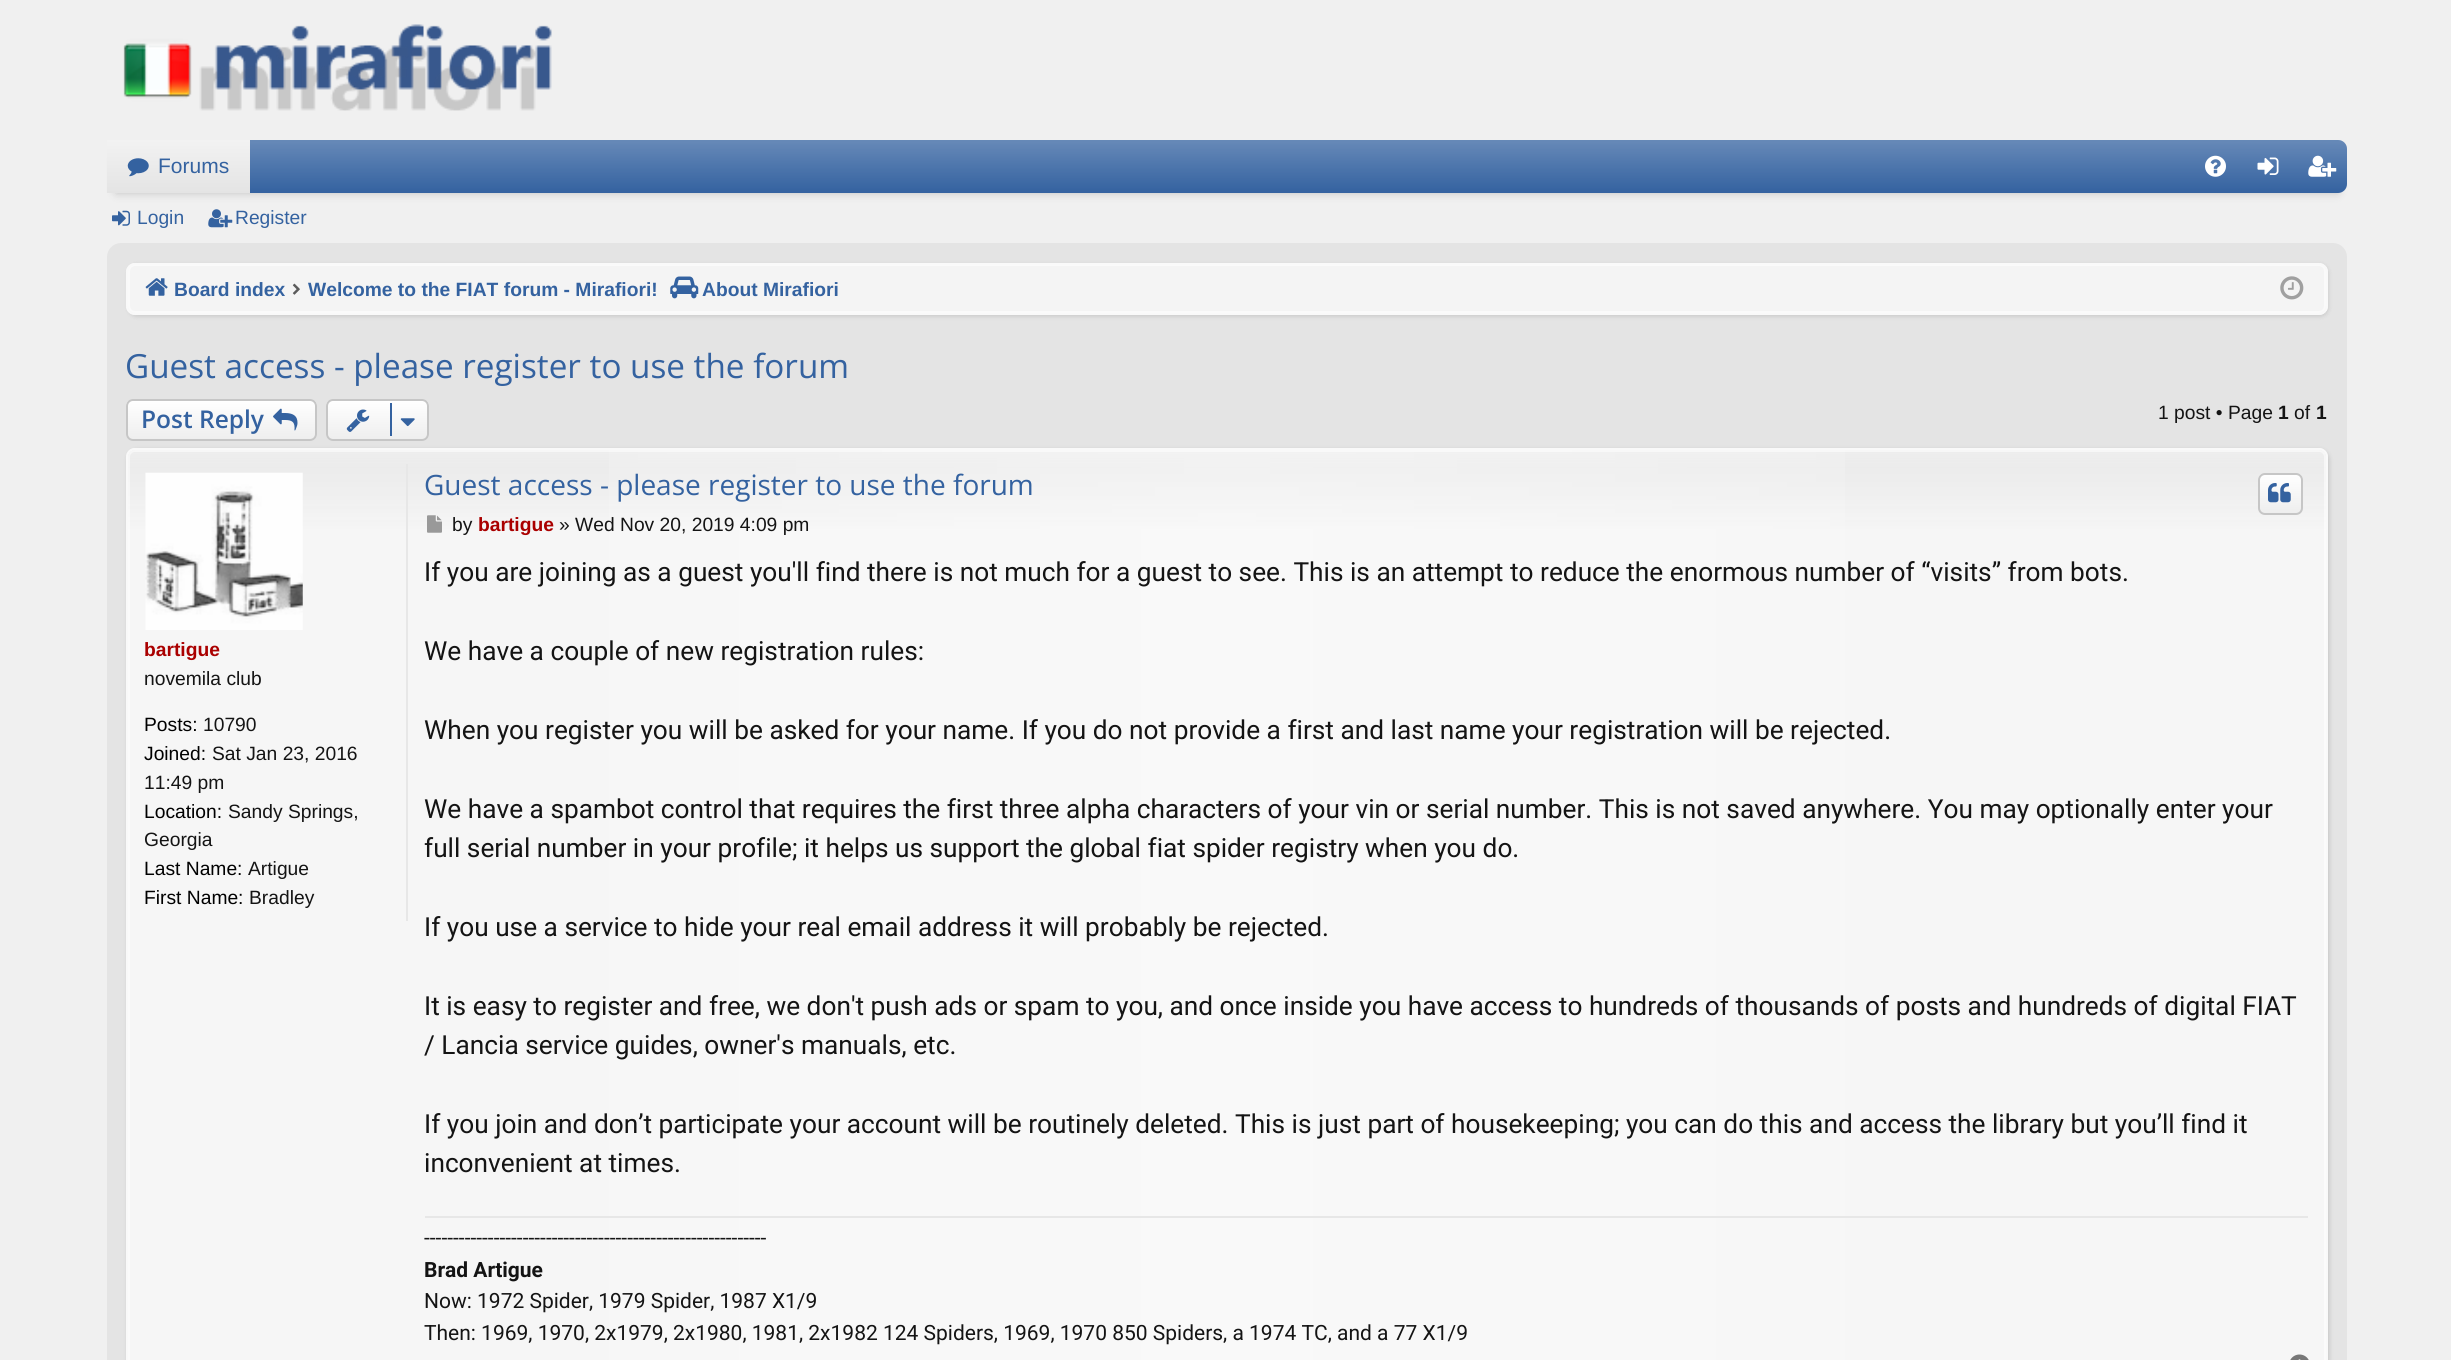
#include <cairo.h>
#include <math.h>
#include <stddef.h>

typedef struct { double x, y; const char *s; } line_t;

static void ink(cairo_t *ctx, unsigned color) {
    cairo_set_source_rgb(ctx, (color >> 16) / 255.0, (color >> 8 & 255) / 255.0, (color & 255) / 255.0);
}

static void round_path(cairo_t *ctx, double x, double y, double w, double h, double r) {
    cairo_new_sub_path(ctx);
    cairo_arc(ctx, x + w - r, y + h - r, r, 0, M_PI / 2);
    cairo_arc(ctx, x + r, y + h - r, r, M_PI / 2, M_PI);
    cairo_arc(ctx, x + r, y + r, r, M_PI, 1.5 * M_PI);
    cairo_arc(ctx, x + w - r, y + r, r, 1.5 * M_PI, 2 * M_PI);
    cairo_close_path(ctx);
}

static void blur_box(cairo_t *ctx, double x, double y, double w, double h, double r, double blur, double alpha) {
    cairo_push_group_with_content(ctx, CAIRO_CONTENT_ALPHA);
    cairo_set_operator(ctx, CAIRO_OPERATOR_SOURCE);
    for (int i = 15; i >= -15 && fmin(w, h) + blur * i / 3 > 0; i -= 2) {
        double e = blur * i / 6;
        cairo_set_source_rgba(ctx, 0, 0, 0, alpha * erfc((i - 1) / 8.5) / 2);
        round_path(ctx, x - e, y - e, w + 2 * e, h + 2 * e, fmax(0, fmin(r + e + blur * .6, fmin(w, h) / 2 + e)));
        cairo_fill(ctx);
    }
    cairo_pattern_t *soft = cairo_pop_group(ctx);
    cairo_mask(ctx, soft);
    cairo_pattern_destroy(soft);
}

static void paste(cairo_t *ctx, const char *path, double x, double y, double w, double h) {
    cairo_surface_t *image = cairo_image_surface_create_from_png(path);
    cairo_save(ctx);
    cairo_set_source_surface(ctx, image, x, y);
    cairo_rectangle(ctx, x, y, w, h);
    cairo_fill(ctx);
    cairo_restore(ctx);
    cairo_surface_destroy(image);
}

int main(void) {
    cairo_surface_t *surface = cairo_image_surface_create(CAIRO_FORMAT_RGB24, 2451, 1360);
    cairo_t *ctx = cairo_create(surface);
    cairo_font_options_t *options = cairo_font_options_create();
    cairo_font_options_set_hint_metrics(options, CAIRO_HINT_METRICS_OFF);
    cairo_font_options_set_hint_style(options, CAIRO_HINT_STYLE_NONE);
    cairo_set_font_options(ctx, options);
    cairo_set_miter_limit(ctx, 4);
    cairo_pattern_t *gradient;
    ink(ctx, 0xF0F0F0);
    cairo_paint(ctx);
    paste(ctx, "media/1.png", 123, 24, 429, 87);
    ink(ctx, 0x000000);
    blur_box(ctx, 116, 158, 2222, 35, 0, 4.5, 0.2);
    ink(ctx, 0x3462A0);
    round_path(ctx, 107, 140, 2240, 53, 9);
    cairo_fill(ctx);
    gradient = cairo_pattern_create_linear(1227, 140, 1227, 193);
    cairo_pattern_add_color_stop_rgba(gradient, 0, 1, 1, 1, 0.25);
    cairo_pattern_add_color_stop_rgba(gradient, 1, 1, 1, 1, 0);
    cairo_set_source(ctx, gradient);
    cairo_pattern_destroy(gradient);
    round_path(ctx, 107, 140, 2240, 53, 9);
    cairo_fill(ctx);
    gradient = cairo_pattern_create_linear(179, 140, 179, 193);
    cairo_pattern_add_color_stop_rgba(gradient, 0, 0.949, 0.949, 0.949, 1);
    cairo_pattern_add_color_stop_rgba(gradient, 1, 0.894, 0.894, 0.894, 1);
    cairo_set_source(ctx, gradient);
    cairo_pattern_destroy(gradient);
    cairo_rectangle(ctx, 107, 140, 143, 53);
    cairo_fill(ctx);
    paste(ctx, "media/2.png", 127, 158, 22, 19);
    cairo_select_font_face(ctx, "Liberation Sans", CAIRO_FONT_SLANT_NORMAL, CAIRO_FONT_WEIGHT_NORMAL);
    cairo_set_font_size(ctx, 21);
    ink(ctx, 0x3462A0);
    cairo_move_to(ctx, 158, 173);
    cairo_show_text(ctx, "Forums");
    paste(ctx, "media/3.png", 2205, 155, 21, 22);
    paste(ctx, "media/4.png", 2257, 157, 22, 18);
    paste(ctx, "media/5.png", 2308, 155, 29, 22);
    paste(ctx, "media/6.png", 112, 210, 18, 16);
    cairo_set_font_size(ctx, 19.25);
    cairo_move_to(ctx, 137, 224);
    cairo_show_text(ctx, "Login");
    paste(ctx, "media/7.png", 208, 209, 25, 19);
    cairo_move_to(ctx, 235, 224);
    cairo_show_text(ctx, "Register");
    ink(ctx, 0xE4E4E4);
    round_path(ctx, 108, 244, 2238, 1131, 13);
    cairo_fill_preserve(ctx);
    cairo_stroke(ctx);
    ink(ctx, 0x000000);
    blur_box(ctx, 128, 264, 2201, 53, 9, 2, 0.1);
    ink(ctx, 0xF4F4F4);
    round_path(ctx, 126, 263, 2202, 52, 9);
    cairo_fill(ctx);
    round_path(ctx, 129, 265, 2196, 47, 6);
    ink(ctx, 0xFAFAFA);
    cairo_stroke(ctx);
    round_path(ctx, 127, 264, 2200, 50, 8);
    ink(ctx, 0xF9F9F9);
    cairo_stroke(ctx);
    paste(ctx, "media/8.png", 145, 278, 23, 18);
    cairo_select_font_face(ctx, "Liberation Sans", CAIRO_FONT_SLANT_NORMAL, CAIRO_FONT_WEIGHT_BOLD);
    ink(ctx, 0x3462A0);
    cairo_move_to(ctx, 174, 296);
    cairo_show_text(ctx, "Board index");
    paste(ctx, "media/9.png", 292, 283, 8, 12);
    cairo_move_to(ctx, 308, 296);
    cairo_show_text(ctx, "Welcome to the FIAT forum - Mirafiori!");
    paste(ctx, "media/10.png", 670, 276, 29, 23);
    cairo_move_to(ctx, 702, 296);
    cairo_show_text(ctx, "About Mirafiori");
    paste(ctx, "media/11.png", 2280, 276, 24, 24);
    cairo_select_font_face(ctx, "Open Sans", CAIRO_FONT_SLANT_NORMAL, CAIRO_FONT_WEIGHT_NORMAL);
    cairo_set_font_size(ctx, 33.25);
    cairo_move_to(ctx, 125, 378);
    cairo_show_text(ctx, "Guest access - please register to use the forum");
    ink(ctx, 0xEEEEEE);
    round_path(ctx, 126, 399, 191, 42, 7);
    cairo_fill(ctx);
    cairo_save(ctx);
    round_path(ctx, 126, 399, 191, 42, 7);
    cairo_clip(ctx);
    gradient = cairo_pattern_create_linear(221, 401, 221, 439);
    cairo_pattern_add_color_stop_rgba(gradient, 0, 1, 1, 1, 1);
    cairo_pattern_add_color_stop_rgba(gradient, 1, 1, 1, 1, 0);
    cairo_set_source(ctx, gradient);
    cairo_pattern_destroy(gradient);
    cairo_rectangle(ctx, 126, 401, 191, 37);
    cairo_fill(ctx);
    cairo_restore(ctx);
    round_path(ctx, 127, 400, 189, 40, 6);
    ink(ctx, 0xC6C6C6);
    cairo_stroke(ctx);
    cairo_select_font_face(ctx, "Open Sans SemiBold", CAIRO_FONT_SLANT_NORMAL, CAIRO_FONT_WEIGHT_NORMAL);
    cairo_set_font_size(ctx, 24.5);
    ink(ctx, 0x3462A0);
    cairo_move_to(ctx, 141, 428);
    cairo_show_text(ctx, "Post Reply");
    paste(ctx, "media/12.png", 273, 408, 25, 23);
    ink(ctx, 0xEEEEEE);
    round_path(ctx, 326, 399, 103, 42, 7);
    cairo_fill(ctx);
    cairo_save(ctx);
    round_path(ctx, 326, 399, 103, 42, 7);
    cairo_clip(ctx);
    gradient = cairo_pattern_create_linear(377, 401, 377, 439);
    cairo_pattern_add_color_stop_rgba(gradient, 0, 1, 1, 1, 1);
    cairo_pattern_add_color_stop_rgba(gradient, 1, 1, 1, 1, 0);
    cairo_set_source(ctx, gradient);
    cairo_pattern_destroy(gradient);
    cairo_rectangle(ctx, 326, 401, 103, 37);
    cairo_fill(ctx);
    cairo_restore(ctx);
    round_path(ctx, 327, 400, 101, 40, 6);
    ink(ctx, 0xC6C6C6);
    cairo_stroke(ctx);
    paste(ctx, "media/13.png", 346, 409, 24, 23);
    ink(ctx, 0x3462A0);
    cairo_rectangle(ctx, 390, 403, 2, 33);
    cairo_fill(ctx);
    paste(ctx, "media/14.png", 400, 418, 15, 9);
    cairo_select_font_face(ctx, "Liberation Sans", CAIRO_FONT_SLANT_NORMAL, CAIRO_FONT_WEIGHT_NORMAL);
    cairo_set_font_size(ctx, 19.25);
    ink(ctx, 0x141414);
    cairo_move_to(ctx, 2158, 419);
    cairo_show_text(ctx, "1 post • Page");
    cairo_select_font_face(ctx, "Liberation Sans", CAIRO_FONT_SLANT_NORMAL, CAIRO_FONT_WEIGHT_BOLD);
    cairo_move_to(ctx, 2278, 419);
    cairo_show_text(ctx, "1");
    cairo_select_font_face(ctx, "Liberation Sans", CAIRO_FONT_SLANT_NORMAL, CAIRO_FONT_WEIGHT_NORMAL);
    cairo_move_to(ctx, 2294, 419);
    cairo_show_text(ctx, "of");
    cairo_select_font_face(ctx, "Liberation Sans", CAIRO_FONT_SLANT_NORMAL, CAIRO_FONT_WEIGHT_BOLD);
    cairo_move_to(ctx, 2316, 419);
    cairo_show_text(ctx, "1");
    ink(ctx, 0x000000);
    blur_box(ctx, 128, 450, 2201, 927, 9, 2.5, 0.15);
    ink(ctx, 0xF6F6F6);
    round_path(ctx, 126, 448, 2202, 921, 9);
    cairo_fill(ctx);
    cairo_save(ctx);
    round_path(ctx, 126, 448, 2202, 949, 9);
    cairo_clip(ctx);
    gradient = cairo_pattern_create_linear(1227, 450, 1227, 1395);
    cairo_pattern_add_color_stop_rgba(gradient, 0, 0.8, 0.8, 0.8, 0.2);
    cairo_pattern_add_color_stop_rgba(gradient, 0.02, 0.8, 0.8, 0.8, 0.25);
    cairo_pattern_add_color_stop_rgba(gradient, 0.09, 0.8, 0.8, 0.8, 0);
    cairo_set_source(ctx, gradient);
    cairo_pattern_destroy(gradient);
    cairo_rectangle(ctx, 126, 450, 2202, 79);
    cairo_fill(ctx);
    cairo_restore(ctx);
    gradient = cairo_pattern_create_linear(128, 922, 2326, 922);
    cairo_pattern_add_color_stop_rgba(gradient, 0, 1, 1, 1, 0);
    cairo_pattern_add_color_stop_rgba(gradient, 0.5, 1, 1, 1, 0.3);
    cairo_pattern_add_color_stop_rgba(gradient, 1, 1, 1, 1, 0);
    cairo_set_source(ctx, gradient);
    cairo_pattern_destroy(gradient);
    cairo_rectangle(ctx, 609, 450, 1236, 910);
    cairo_fill(ctx);
    round_path(ctx, 129, 451, 2196, 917, 6);
    cairo_set_source_rgba(ctx, 1, 1, 1, 0.5);
    cairo_stroke(ctx);
    round_path(ctx, 127, 449, 2200, 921, 8);
    ink(ctx, 0xF9F9F9);
    cairo_stroke(ctx);
    ink(ctx, 0xE7E7E7);
    cairo_rectangle(ctx, 406, 464, 2, 457);
    cairo_fill(ctx);
    paste(ctx, "media/15.png", 145, 472, 158, 158);
    ink(ctx, 0xAA0000);
    cairo_move_to(ctx, 144, 656);
    cairo_show_text(ctx, "bartigue");
    cairo_select_font_face(ctx, "Liberation Sans", CAIRO_FONT_SLANT_NORMAL, CAIRO_FONT_WEIGHT_NORMAL);
    ink(ctx, 0x141414);
    cairo_move_to(ctx, 144, 685);
    cairo_show_text(ctx, "novemila club");
    ink(ctx, 0x000000);
    cairo_move_to(ctx, 144, 731);
    cairo_show_text(ctx, "Posts:");
    ink(ctx, 0x141414);
    cairo_move_to(ctx, 203, 731);
    cairo_show_text(ctx, "10790");
    ink(ctx, 0x000000);
    cairo_move_to(ctx, 144, 760);
    cairo_show_text(ctx, "Joined:");
    ink(ctx, 0x141414);
    cairo_move_to(ctx, 212, 760);
    cairo_show_text(ctx, "Sat Jan 23, 2016");
    cairo_move_to(ctx, 144, 789);
    cairo_show_text(ctx, "11:49 pm");
    ink(ctx, 0x000000);
    cairo_move_to(ctx, 144, 818);
    cairo_show_text(ctx, "Location:");
    ink(ctx, 0x141414);
    cairo_move_to(ctx, 228, 818);
    cairo_show_text(ctx, "Sandy Springs,");
    cairo_move_to(ctx, 144, 846);
    cairo_show_text(ctx, "Georgia");
    ink(ctx, 0x000000);
    cairo_move_to(ctx, 144, 875);
    cairo_show_text(ctx, "Last Name:");
    ink(ctx, 0x141414);
    cairo_move_to(ctx, 248, 875);
    cairo_show_text(ctx, "Artigue");
    ink(ctx, 0x000000);
    cairo_move_to(ctx, 144, 904);
    cairo_show_text(ctx, "First Name:");
    ink(ctx, 0x141414);
    cairo_move_to(ctx, 249, 904);
    cairo_show_text(ctx, "Bradley");
    cairo_select_font_face(ctx, "Open Sans", CAIRO_FONT_SLANT_NORMAL, CAIRO_FONT_WEIGHT_NORMAL);
    cairo_set_font_size(ctx, 28);
    ink(ctx, 0x3462A0);
    cairo_move_to(ctx, 424, 495);
    cairo_show_text(ctx, "Guest access - please register to use the forum");
    cairo_save(ctx);
    round_path(ctx, 2258, 473, 45, 42, 7);
    cairo_clip(ctx);
    gradient = cairo_pattern_create_linear(2280, 474, 2280, 513);
    cairo_pattern_add_color_stop_rgba(gradient, 0, 1, 1, 1, 1);
    cairo_pattern_add_color_stop_rgba(gradient, 1, 0.933, 0.933, 0.933, 1);
    cairo_set_source(ctx, gradient);
    cairo_pattern_destroy(gradient);
    cairo_rectangle(ctx, 2258, 474, 45, 39);
    cairo_fill(ctx);
    cairo_restore(ctx);
    round_path(ctx, 2259, 474, 43, 40, 6);
    ink(ctx, 0xC6C6C6);
    cairo_stroke(ctx);
    paste(ctx, "media/16.png", 2268, 483, 23, 20);
    paste(ctx, "media/17.png", 427, 515, 15, 18);
    cairo_select_font_face(ctx, "Liberation Sans", CAIRO_FONT_SLANT_NORMAL, CAIRO_FONT_WEIGHT_NORMAL);
    cairo_set_font_size(ctx, 19.25);
    ink(ctx, 0x141414);
    cairo_move_to(ctx, 452, 531);
    cairo_show_text(ctx, "by");
    cairo_select_font_face(ctx, "Liberation Sans", CAIRO_FONT_SLANT_NORMAL, CAIRO_FONT_WEIGHT_BOLD);
    ink(ctx, 0xAA0000);
    cairo_move_to(ctx, 478, 531);
    cairo_show_text(ctx, "bartigue");
    cairo_select_font_face(ctx, "Liberation Sans", CAIRO_FONT_SLANT_NORMAL, CAIRO_FONT_WEIGHT_NORMAL);
    ink(ctx, 0x141414);
    cairo_move_to(ctx, 559, 531);
    cairo_show_text(ctx, "» Wed Nov 20, 2019 4:09 pm");
    cairo_select_font_face(ctx, "Roboto", CAIRO_FONT_SLANT_NORMAL, CAIRO_FONT_WEIGHT_NORMAL);
    cairo_set_font_size(ctx, 26.25);
    {
        static const line_t items[] = {
            {424, 581, "If you are joining as a guest you'll find there is not much for a guest to see. This is an attempt to reduce the enormous number of “visits” from bots."},
            {424, 660, "We have a couple of new registration rules:"},
            {424, 739, "When you register you will be asked for your name. If you do not provide a first and last name your registration will be rejected."},
            {424, 818, "We have a spambot control that requires the first three alpha characters of your vin or serial number. This is not saved anywhere. You may optionally enter your"},
            {424, 857, "full serial number in your profile; it helps us support the global fiat spider registry when you do."},
            {424, 936, "If you use a service to hide your real email address it will probably be rejected."},
            {424, 1015, "It is easy to register and free, we don't push ads or spam to you, and once inside you have access to hundreds of thousands of posts and hundreds of digital FIAT"},
            {424, 1054, "/ Lancia service guides, owner's manuals, etc."},
            {424, 1133, "If you join and don’t participate your account will be routinely deleted. This is just part of housekeeping; you can do this and access the library but you’ll find it"},
            {424, 1172, "inconvenient at times."},
        };
        for (size_t i = 0; i < sizeof items / sizeof *items; i++) {
            cairo_move_to(ctx, items[i].x, items[i].y);
            cairo_show_text(ctx, items[i].s);
        }
    }
    ink(ctx, 0xE7E7E7);
    cairo_rectangle(ctx, 425, 1216, 1883, 2);
    cairo_fill(ctx);
    cairo_set_font_size(ctx, 21);
    ink(ctx, 0x141414);
    cairo_move_to(ctx, 424, 1245);
    cairo_show_text(ctx, "-----------------------------------------------------------");
    cairo_select_font_face(ctx, "Roboto", CAIRO_FONT_SLANT_NORMAL, CAIRO_FONT_WEIGHT_BOLD);
    cairo_move_to(ctx, 424, 1277);
    cairo_show_text(ctx, "Brad Artigue");
    cairo_select_font_face(ctx, "Roboto", CAIRO_FONT_SLANT_NORMAL, CAIRO_FONT_WEIGHT_NORMAL);
    cairo_move_to(ctx, 424, 1308);
    cairo_show_text(ctx, "Now: 1972 Spider, 1979 Spider, 1987 X1/9");
    cairo_move_to(ctx, 424, 1340);
    cairo_show_text(ctx, "Then: 1969, 1970, 2x1979, 2x1980, 1981, 2x1982 124 Spiders, 1969, 1970 850 Spiders, a 1974 TC, and a 77 X1/9");
    paste(ctx, "media/18.png", 2290, 1354, 19, 6);
    cairo_surface_write_to_png(surface, "image.png");
    cairo_font_options_destroy(options);
    cairo_destroy(ctx);
    cairo_surface_destroy(surface);
    return 0;
}
